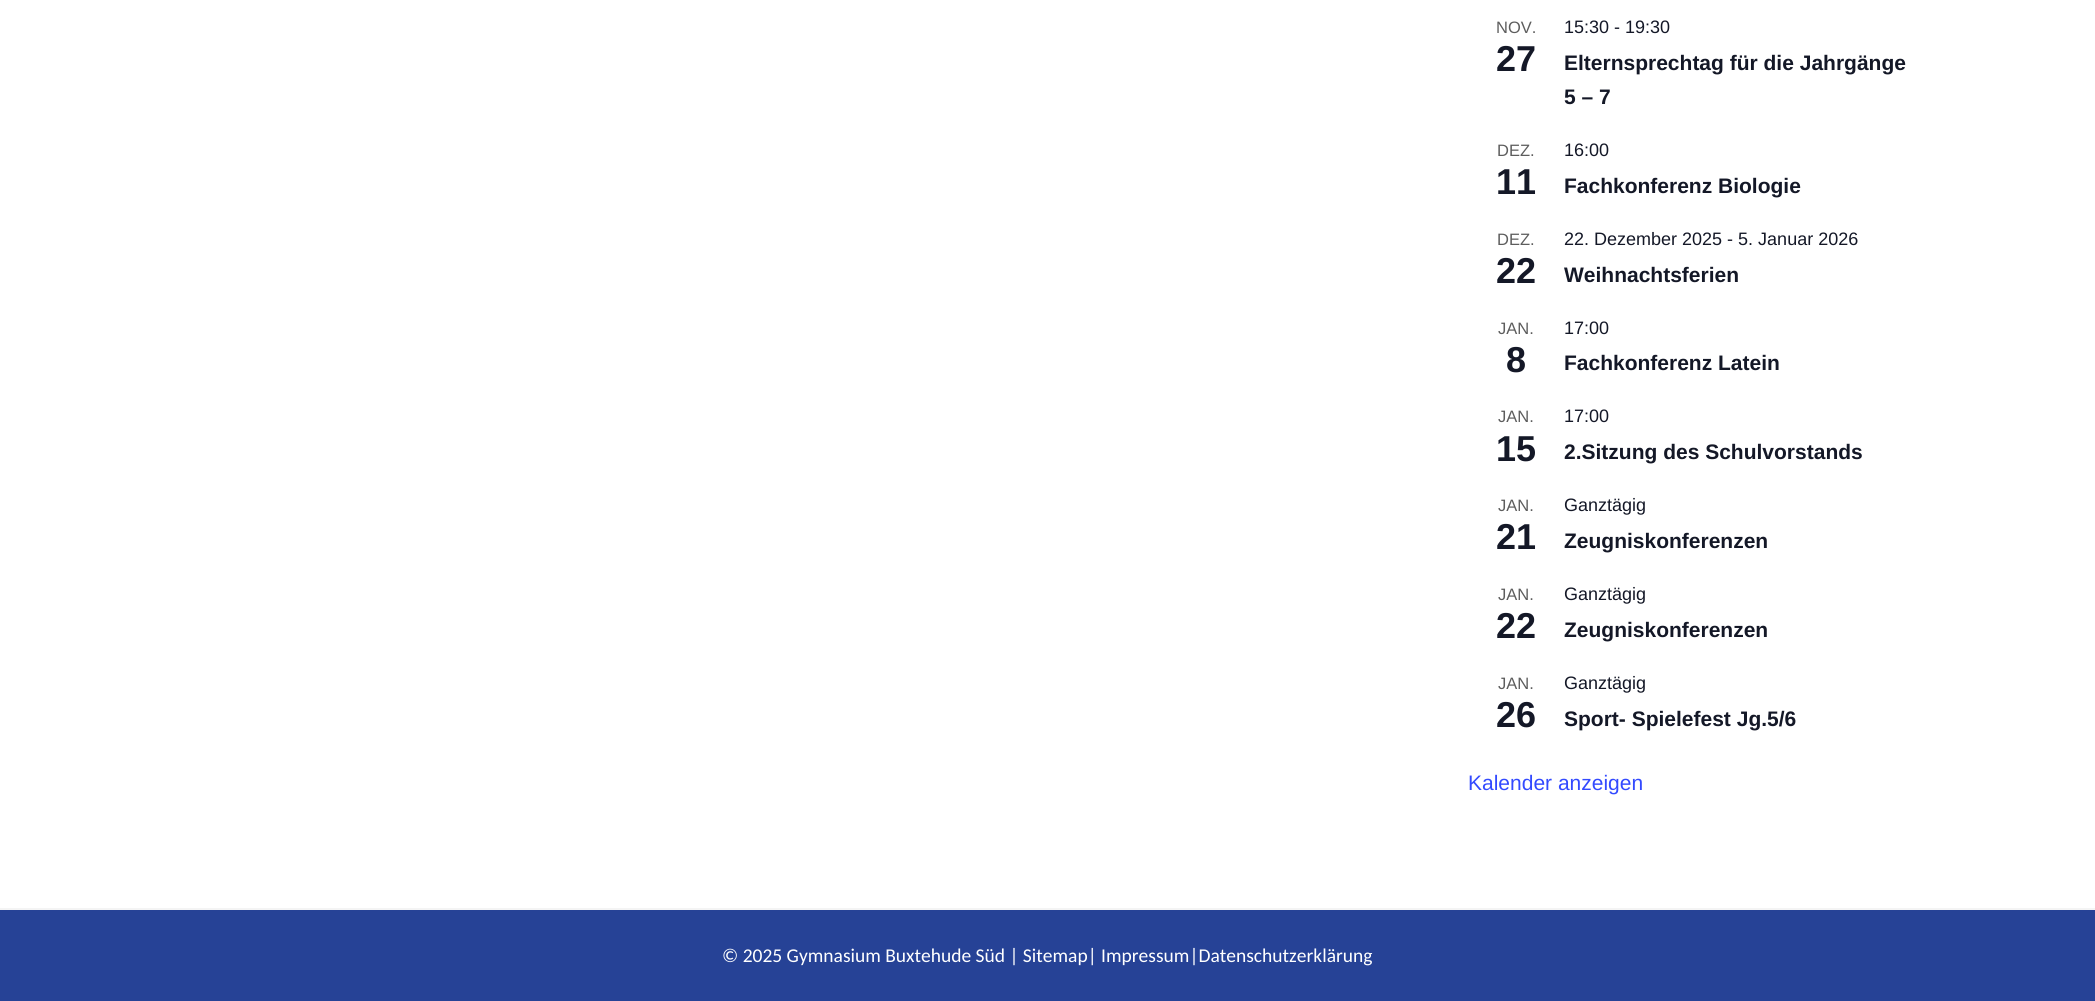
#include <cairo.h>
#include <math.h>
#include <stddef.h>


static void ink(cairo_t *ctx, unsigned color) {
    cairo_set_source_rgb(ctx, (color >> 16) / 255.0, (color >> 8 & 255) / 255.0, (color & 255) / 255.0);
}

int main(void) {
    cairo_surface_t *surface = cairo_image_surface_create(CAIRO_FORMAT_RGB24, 2095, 1001);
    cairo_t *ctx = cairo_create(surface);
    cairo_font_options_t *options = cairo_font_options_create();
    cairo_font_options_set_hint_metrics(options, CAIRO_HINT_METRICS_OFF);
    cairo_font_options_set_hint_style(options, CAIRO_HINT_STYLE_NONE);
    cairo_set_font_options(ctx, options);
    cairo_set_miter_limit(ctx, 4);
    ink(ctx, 0xFFFFFF);
    cairo_paint(ctx);
    cairo_select_font_face(ctx, "Liberation Sans", CAIRO_FONT_SLANT_NORMAL, CAIRO_FONT_WEIGHT_NORMAL);
    cairo_set_font_size(ctx, 16.5);
    ink(ctx, 0x5D5D5D);
    cairo_move_to(ctx, 1496, 33);
    cairo_show_text(ctx, "NOV.");
    cairo_select_font_face(ctx, "Liberation Sans", CAIRO_FONT_SLANT_NORMAL, CAIRO_FONT_WEIGHT_BOLD);
    cairo_set_font_size(ctx, 36);
    ink(ctx, 0x141827);
    cairo_move_to(ctx, 1496, 71);
    cairo_show_text(ctx, "27");
    cairo_select_font_face(ctx, "Liberation Sans", CAIRO_FONT_SLANT_NORMAL, CAIRO_FONT_WEIGHT_NORMAL);
    cairo_set_font_size(ctx, 18);
    cairo_move_to(ctx, 1564, 33);
    cairo_show_text(ctx, "15:30 - 19:30");
    cairo_select_font_face(ctx, "Liberation Sans", CAIRO_FONT_SLANT_NORMAL, CAIRO_FONT_WEIGHT_BOLD);
    cairo_set_font_size(ctx, 21);
    cairo_move_to(ctx, 1564, 70);
    cairo_show_text(ctx, "Elternsprechtag für die Jahrgänge");
    cairo_move_to(ctx, 1564, 104);
    cairo_show_text(ctx, "5 – 7");
    cairo_select_font_face(ctx, "Liberation Sans", CAIRO_FONT_SLANT_NORMAL, CAIRO_FONT_WEIGHT_NORMAL);
    cairo_set_font_size(ctx, 16.5);
    ink(ctx, 0x5D5D5D);
    cairo_move_to(ctx, 1497, 156);
    cairo_show_text(ctx, "DEZ.");
    cairo_select_font_face(ctx, "Liberation Sans", CAIRO_FONT_SLANT_NORMAL, CAIRO_FONT_WEIGHT_BOLD);
    cairo_set_font_size(ctx, 36);
    ink(ctx, 0x141827);
    cairo_move_to(ctx, 1496, 194);
    cairo_show_text(ctx, "11");
    cairo_select_font_face(ctx, "Liberation Sans", CAIRO_FONT_SLANT_NORMAL, CAIRO_FONT_WEIGHT_NORMAL);
    cairo_set_font_size(ctx, 18);
    cairo_move_to(ctx, 1564, 156);
    cairo_show_text(ctx, "16:00");
    cairo_select_font_face(ctx, "Liberation Sans", CAIRO_FONT_SLANT_NORMAL, CAIRO_FONT_WEIGHT_BOLD);
    cairo_set_font_size(ctx, 21);
    cairo_move_to(ctx, 1564, 193);
    cairo_show_text(ctx, "Fachkonferenz Biologie");
    cairo_select_font_face(ctx, "Liberation Sans", CAIRO_FONT_SLANT_NORMAL, CAIRO_FONT_WEIGHT_NORMAL);
    cairo_set_font_size(ctx, 16.5);
    ink(ctx, 0x5D5D5D);
    cairo_move_to(ctx, 1497, 245);
    cairo_show_text(ctx, "DEZ.");
    cairo_select_font_face(ctx, "Liberation Sans", CAIRO_FONT_SLANT_NORMAL, CAIRO_FONT_WEIGHT_BOLD);
    cairo_set_font_size(ctx, 36);
    ink(ctx, 0x141827);
    cairo_move_to(ctx, 1496, 283);
    cairo_show_text(ctx, "22");
    cairo_select_font_face(ctx, "Liberation Sans", CAIRO_FONT_SLANT_NORMAL, CAIRO_FONT_WEIGHT_NORMAL);
    cairo_set_font_size(ctx, 18);
    cairo_move_to(ctx, 1564, 245);
    cairo_show_text(ctx, "22. Dezember 2025 - 5. Januar 2026");
    cairo_select_font_face(ctx, "Liberation Sans", CAIRO_FONT_SLANT_NORMAL, CAIRO_FONT_WEIGHT_BOLD);
    cairo_set_font_size(ctx, 21);
    cairo_move_to(ctx, 1564, 282);
    cairo_show_text(ctx, "Weihnachtsferien");
    cairo_select_font_face(ctx, "Liberation Sans", CAIRO_FONT_SLANT_NORMAL, CAIRO_FONT_WEIGHT_NORMAL);
    cairo_set_font_size(ctx, 16.5);
    ink(ctx, 0x5D5D5D);
    cairo_move_to(ctx, 1498, 334);
    cairo_show_text(ctx, "JAN.");
    cairo_select_font_face(ctx, "Liberation Sans", CAIRO_FONT_SLANT_NORMAL, CAIRO_FONT_WEIGHT_BOLD);
    cairo_set_font_size(ctx, 36);
    ink(ctx, 0x141827);
    cairo_move_to(ctx, 1506, 372);
    cairo_show_text(ctx, "8");
    cairo_select_font_face(ctx, "Liberation Sans", CAIRO_FONT_SLANT_NORMAL, CAIRO_FONT_WEIGHT_NORMAL);
    cairo_set_font_size(ctx, 18);
    cairo_move_to(ctx, 1564, 334);
    cairo_show_text(ctx, "17:00");
    cairo_select_font_face(ctx, "Liberation Sans", CAIRO_FONT_SLANT_NORMAL, CAIRO_FONT_WEIGHT_BOLD);
    cairo_set_font_size(ctx, 21);
    cairo_move_to(ctx, 1564, 370);
    cairo_show_text(ctx, "Fachkonferenz Latein");
    cairo_select_font_face(ctx, "Liberation Sans", CAIRO_FONT_SLANT_NORMAL, CAIRO_FONT_WEIGHT_NORMAL);
    cairo_set_font_size(ctx, 16.5);
    ink(ctx, 0x5D5D5D);
    cairo_move_to(ctx, 1498, 422);
    cairo_show_text(ctx, "JAN.");
    cairo_select_font_face(ctx, "Liberation Sans", CAIRO_FONT_SLANT_NORMAL, CAIRO_FONT_WEIGHT_BOLD);
    cairo_set_font_size(ctx, 36);
    ink(ctx, 0x141827);
    cairo_move_to(ctx, 1496, 461);
    cairo_show_text(ctx, "15");
    cairo_select_font_face(ctx, "Liberation Sans", CAIRO_FONT_SLANT_NORMAL, CAIRO_FONT_WEIGHT_NORMAL);
    cairo_set_font_size(ctx, 18);
    cairo_move_to(ctx, 1564, 422);
    cairo_show_text(ctx, "17:00");
    cairo_select_font_face(ctx, "Liberation Sans", CAIRO_FONT_SLANT_NORMAL, CAIRO_FONT_WEIGHT_BOLD);
    cairo_set_font_size(ctx, 21);
    cairo_move_to(ctx, 1564, 459);
    cairo_show_text(ctx, "2.Sitzung des Schulvorstands");
    cairo_select_font_face(ctx, "Liberation Sans", CAIRO_FONT_SLANT_NORMAL, CAIRO_FONT_WEIGHT_NORMAL);
    cairo_set_font_size(ctx, 16.5);
    ink(ctx, 0x5D5D5D);
    cairo_move_to(ctx, 1498, 511);
    cairo_show_text(ctx, "JAN.");
    cairo_select_font_face(ctx, "Liberation Sans", CAIRO_FONT_SLANT_NORMAL, CAIRO_FONT_WEIGHT_BOLD);
    cairo_set_font_size(ctx, 36);
    ink(ctx, 0x141827);
    cairo_move_to(ctx, 1496, 549);
    cairo_show_text(ctx, "21");
    cairo_select_font_face(ctx, "Liberation Sans", CAIRO_FONT_SLANT_NORMAL, CAIRO_FONT_WEIGHT_NORMAL);
    cairo_set_font_size(ctx, 18);
    cairo_move_to(ctx, 1564, 511);
    cairo_show_text(ctx, "Ganztägig");
    cairo_select_font_face(ctx, "Liberation Sans", CAIRO_FONT_SLANT_NORMAL, CAIRO_FONT_WEIGHT_BOLD);
    cairo_set_font_size(ctx, 21);
    cairo_move_to(ctx, 1564, 548);
    cairo_show_text(ctx, "Zeugniskonferenzen");
    cairo_select_font_face(ctx, "Liberation Sans", CAIRO_FONT_SLANT_NORMAL, CAIRO_FONT_WEIGHT_NORMAL);
    cairo_set_font_size(ctx, 16.5);
    ink(ctx, 0x5D5D5D);
    cairo_move_to(ctx, 1498, 600);
    cairo_show_text(ctx, "JAN.");
    cairo_select_font_face(ctx, "Liberation Sans", CAIRO_FONT_SLANT_NORMAL, CAIRO_FONT_WEIGHT_BOLD);
    cairo_set_font_size(ctx, 36);
    ink(ctx, 0x141827);
    cairo_move_to(ctx, 1496, 638);
    cairo_show_text(ctx, "22");
    cairo_select_font_face(ctx, "Liberation Sans", CAIRO_FONT_SLANT_NORMAL, CAIRO_FONT_WEIGHT_NORMAL);
    cairo_set_font_size(ctx, 18);
    cairo_move_to(ctx, 1564, 600);
    cairo_show_text(ctx, "Ganztägig");
    cairo_select_font_face(ctx, "Liberation Sans", CAIRO_FONT_SLANT_NORMAL, CAIRO_FONT_WEIGHT_BOLD);
    cairo_set_font_size(ctx, 21);
    cairo_move_to(ctx, 1564, 637);
    cairo_show_text(ctx, "Zeugniskonferenzen");
    cairo_select_font_face(ctx, "Liberation Sans", CAIRO_FONT_SLANT_NORMAL, CAIRO_FONT_WEIGHT_NORMAL);
    cairo_set_font_size(ctx, 16.5);
    ink(ctx, 0x5D5D5D);
    cairo_move_to(ctx, 1498, 689);
    cairo_show_text(ctx, "JAN.");
    cairo_select_font_face(ctx, "Liberation Sans", CAIRO_FONT_SLANT_NORMAL, CAIRO_FONT_WEIGHT_BOLD);
    cairo_set_font_size(ctx, 36);
    ink(ctx, 0x141827);
    cairo_move_to(ctx, 1496, 727);
    cairo_show_text(ctx, "26");
    cairo_select_font_face(ctx, "Liberation Sans", CAIRO_FONT_SLANT_NORMAL, CAIRO_FONT_WEIGHT_NORMAL);
    cairo_set_font_size(ctx, 18);
    cairo_move_to(ctx, 1564, 689);
    cairo_show_text(ctx, "Ganztägig");
    cairo_select_font_face(ctx, "Liberation Sans", CAIRO_FONT_SLANT_NORMAL, CAIRO_FONT_WEIGHT_BOLD);
    cairo_set_font_size(ctx, 21);
    cairo_move_to(ctx, 1564, 726);
    cairo_show_text(ctx, "Sport- Spielefest Jg.5/6");
    cairo_select_font_face(ctx, "Liberation Sans", CAIRO_FONT_SLANT_NORMAL, CAIRO_FONT_WEIGHT_NORMAL);
    ink(ctx, 0x334AFF);
    cairo_move_to(ctx, 1468, 790);
    cairo_show_text(ctx, "Kalender anzeigen");
    ink(ctx, 0x264296);
    cairo_rectangle(ctx, 0, 910, 2095, 91);
    cairo_fill(ctx);
    ink(ctx, 0xF4F4F4);
    cairo_rectangle(ctx, 0, 908, 2095, 2);
    cairo_fill(ctx);
    cairo_select_font_face(ctx, "Carlito", CAIRO_FONT_SLANT_NORMAL, CAIRO_FONT_WEIGHT_NORMAL);
    cairo_set_font_size(ctx, 19.5);
    ink(ctx, 0xFFFFFF);
    cairo_move_to(ctx, 722, 962);
    cairo_show_text(ctx, "© 2025 Gymnasium Buxtehude Süd | Sitemap| Impressum|Datenschutzerklärung");
    cairo_surface_write_to_png(surface, "image.png");
    cairo_font_options_destroy(options);
    cairo_destroy(ctx);
    cairo_surface_destroy(surface);
    return 0;
}
